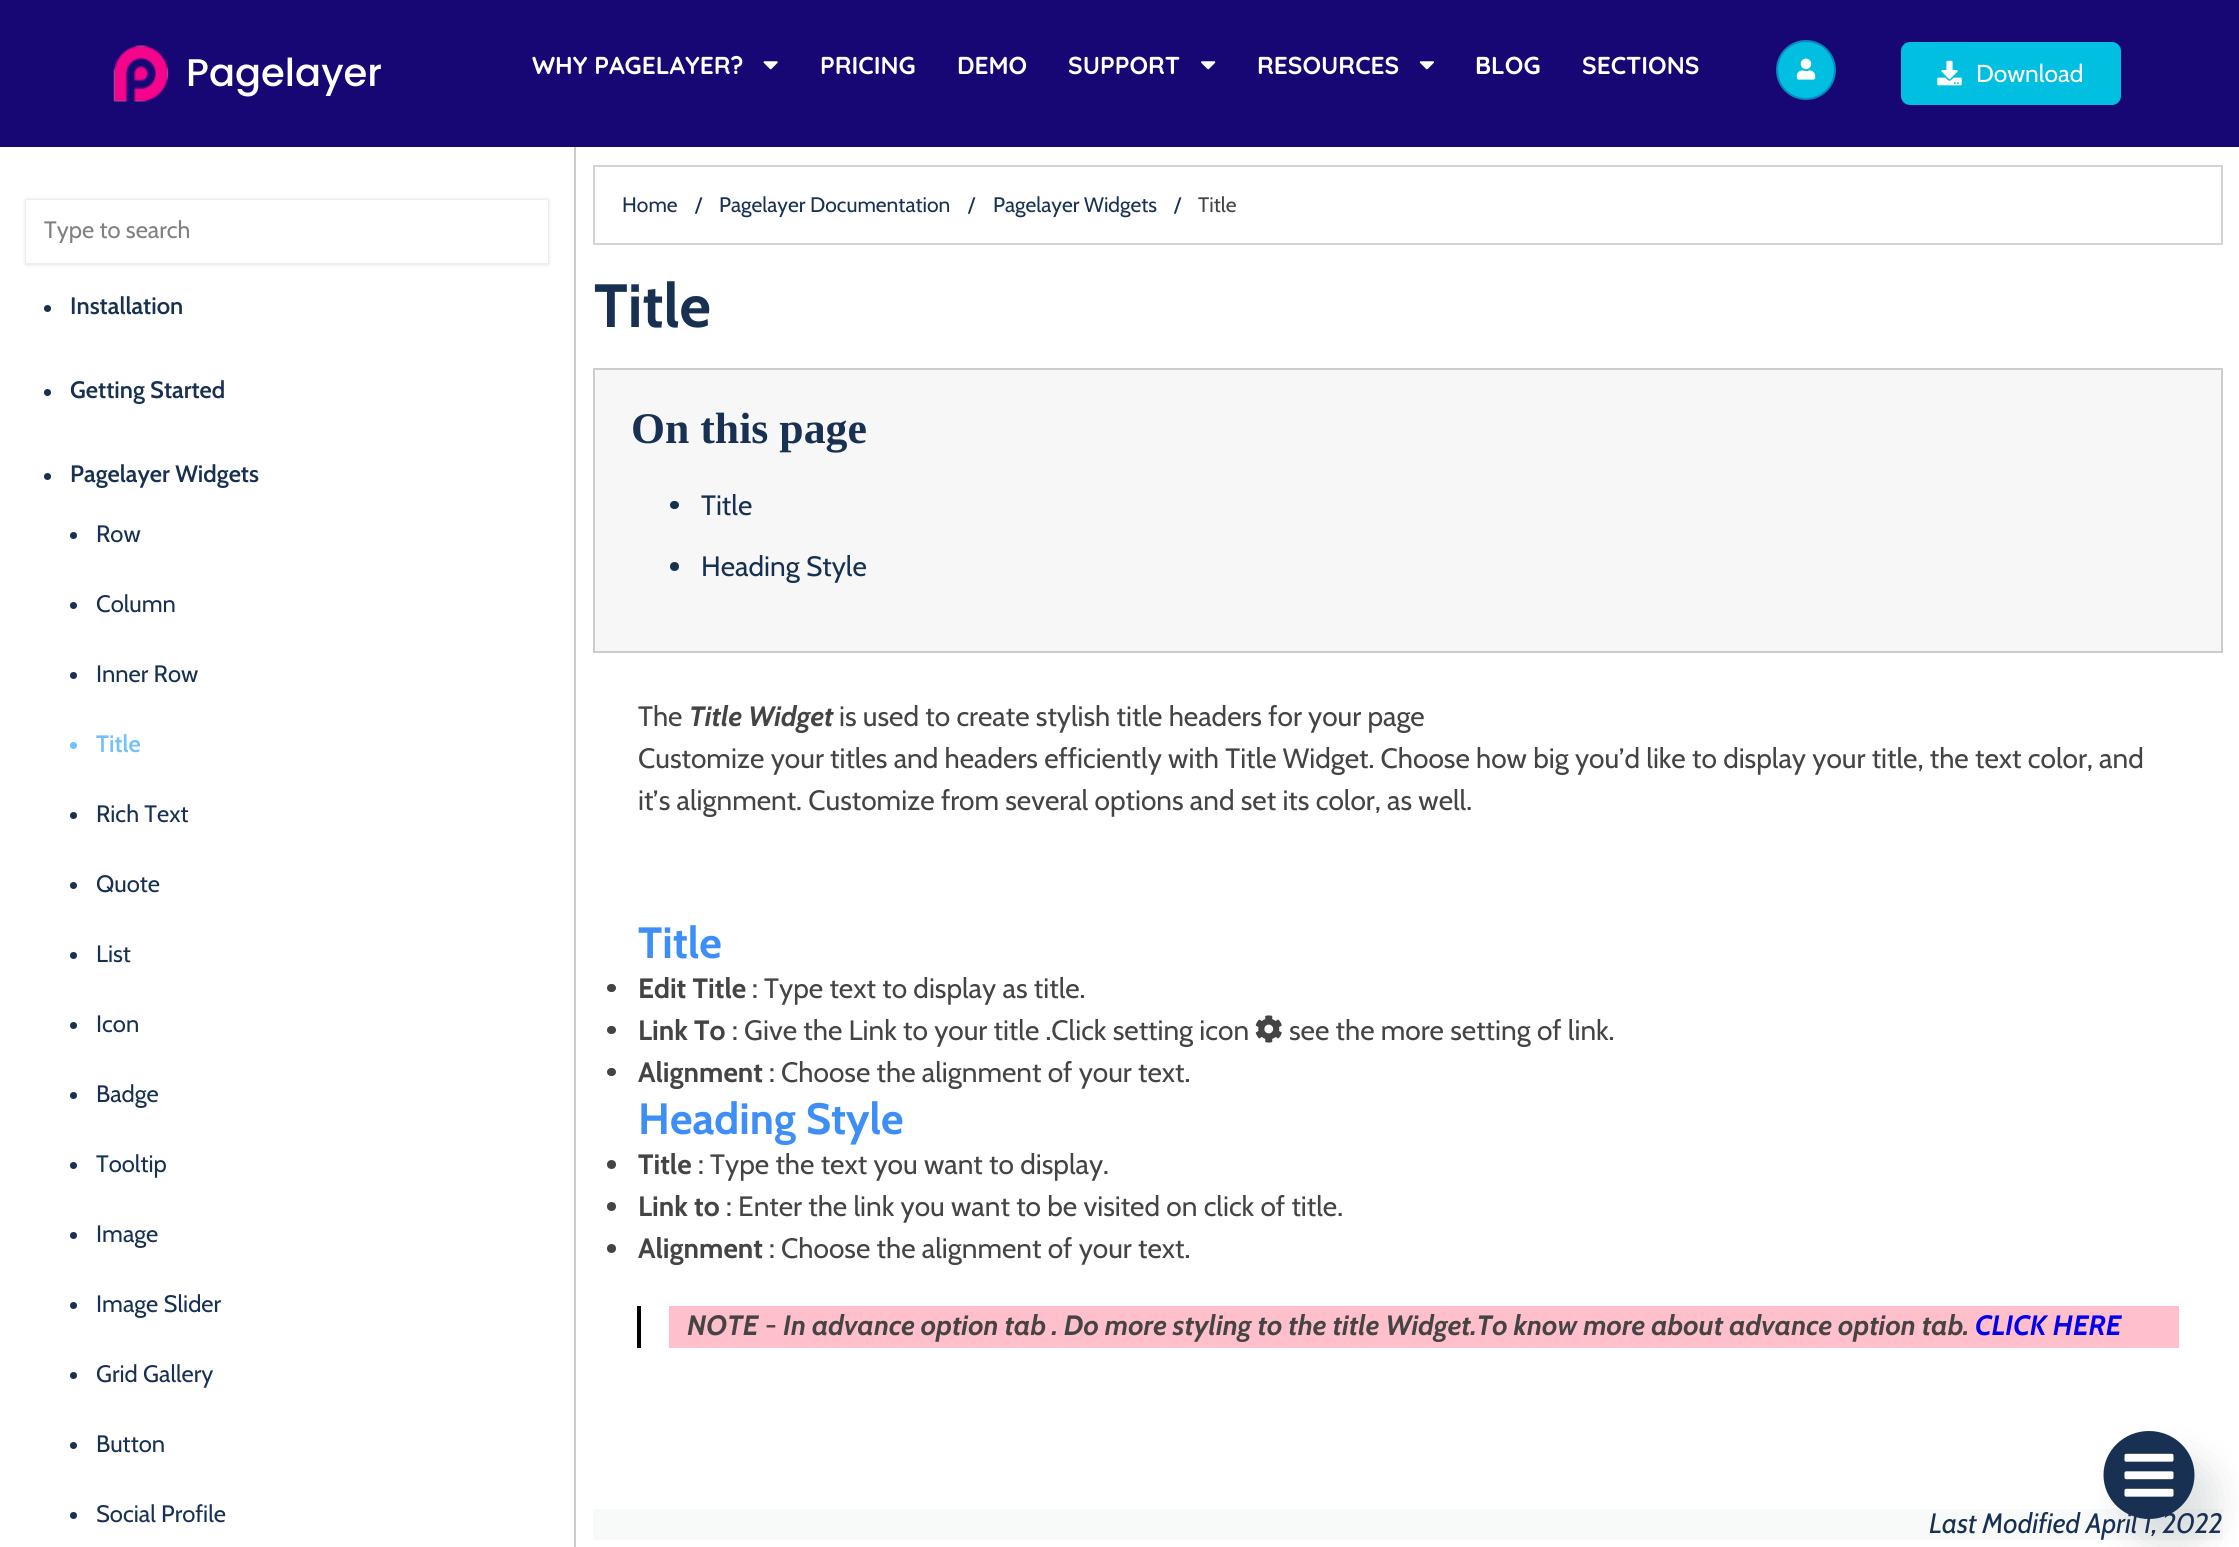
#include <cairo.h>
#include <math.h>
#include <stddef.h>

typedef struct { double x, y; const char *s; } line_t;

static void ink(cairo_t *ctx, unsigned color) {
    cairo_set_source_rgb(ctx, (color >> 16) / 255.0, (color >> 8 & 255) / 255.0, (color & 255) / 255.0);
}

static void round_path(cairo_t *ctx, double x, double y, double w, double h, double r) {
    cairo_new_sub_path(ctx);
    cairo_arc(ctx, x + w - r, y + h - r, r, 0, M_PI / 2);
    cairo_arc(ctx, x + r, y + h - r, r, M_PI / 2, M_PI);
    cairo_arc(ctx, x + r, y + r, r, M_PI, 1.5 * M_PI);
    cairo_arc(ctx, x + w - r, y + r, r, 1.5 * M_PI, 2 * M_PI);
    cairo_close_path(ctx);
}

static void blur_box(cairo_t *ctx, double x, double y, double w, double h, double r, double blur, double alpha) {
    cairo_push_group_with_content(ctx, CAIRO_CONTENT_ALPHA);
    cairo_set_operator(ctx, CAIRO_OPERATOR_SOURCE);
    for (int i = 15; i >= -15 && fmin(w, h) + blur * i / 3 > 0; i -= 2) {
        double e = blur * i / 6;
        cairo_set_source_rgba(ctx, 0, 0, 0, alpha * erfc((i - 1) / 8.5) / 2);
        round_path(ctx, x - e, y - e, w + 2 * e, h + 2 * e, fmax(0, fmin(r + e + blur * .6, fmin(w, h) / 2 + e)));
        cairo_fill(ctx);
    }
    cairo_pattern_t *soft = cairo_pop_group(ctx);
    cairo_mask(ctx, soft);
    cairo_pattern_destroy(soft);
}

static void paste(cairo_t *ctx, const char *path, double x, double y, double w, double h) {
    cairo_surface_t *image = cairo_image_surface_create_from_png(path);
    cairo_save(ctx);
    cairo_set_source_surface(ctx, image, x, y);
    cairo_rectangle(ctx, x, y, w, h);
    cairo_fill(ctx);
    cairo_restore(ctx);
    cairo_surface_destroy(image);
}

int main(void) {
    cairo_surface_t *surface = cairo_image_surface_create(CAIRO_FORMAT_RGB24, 2239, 1547);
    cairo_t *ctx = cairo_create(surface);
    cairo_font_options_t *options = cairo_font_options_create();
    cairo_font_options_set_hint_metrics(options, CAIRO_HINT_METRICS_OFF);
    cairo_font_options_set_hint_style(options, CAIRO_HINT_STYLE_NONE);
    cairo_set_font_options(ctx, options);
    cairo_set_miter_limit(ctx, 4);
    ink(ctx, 0xFFFFFF);
    cairo_paint(ctx);
    ink(ctx, 0x170775);
    cairo_rectangle(ctx, 0, 0, 2239, 147);
    cairo_fill(ctx);
    paste(ctx, "media/1.png", 113, 45, 55, 57);
    cairo_select_font_face(ctx, "Poppins Medium", CAIRO_FONT_SLANT_NORMAL, CAIRO_FONT_WEIGHT_NORMAL);
    cairo_set_font_size(ctx, 38.5);
    ink(ctx, 0xFFFFFF);
    cairo_move_to(ctx, 186, 86);
    cairo_show_text(ctx, "Pagelayer");
    cairo_select_font_face(ctx, "Quicksand", CAIRO_FONT_SLANT_NORMAL, CAIRO_FONT_WEIGHT_BOLD);
    cairo_set_font_size(ctx, 24.5);
    cairo_move_to(ctx, 532, 74);
    cairo_show_text(ctx, "WHY PAGELAYER?");
    paste(ctx, "media/2.png", 763, 61, 15, 9);
    {
        static const line_t items[] = {
            {820, 74, "PRICING"},
            {957, 74, "DEMO"},
            {1068, 74, "SUPPORT"},
        };
        for (size_t i = 0; i < sizeof items / sizeof *items; i++) {
            cairo_move_to(ctx, items[i].x, items[i].y);
            cairo_show_text(ctx, items[i].s);
        }
    }
    paste(ctx, "media/3.png", 1201, 61, 15, 9);
    cairo_move_to(ctx, 1257, 74);
    cairo_show_text(ctx, "RESOURCES");
    paste(ctx, "media/4.png", 1419, 61, 15, 9);
    cairo_move_to(ctx, 1475, 74);
    cairo_show_text(ctx, "BLOG");
    cairo_move_to(ctx, 1582, 74);
    cairo_show_text(ctx, "SECTIONS");
    ink(ctx, 0x00BFE1);
    cairo_new_path(ctx);
    cairo_arc(ctx, 1806, 70, 29, 0, 2 * M_PI);
    cairo_fill_preserve(ctx);
    ink(ctx, 0x0986C0);
    cairo_stroke(ctx);
    paste(ctx, "media/5.png", 1796, 58, 20, 22);
    ink(ctx, 0x00BFE1);
    round_path(ctx, 1901, 42, 220, 63, 9);
    cairo_fill(ctx);
    paste(ctx, "media/6.png", 1937, 60, 25, 26);
    cairo_select_font_face(ctx, "Cabin", CAIRO_FONT_SLANT_NORMAL, CAIRO_FONT_WEIGHT_NORMAL);
    ink(ctx, 0xFFFFFF);
    cairo_move_to(ctx, 1976, 82);
    cairo_show_text(ctx, "Download");
    ink(ctx, 0xCCCCCC);
    cairo_rectangle(ctx, 574, 147, 2, 1400);
    cairo_fill(ctx);
    cairo_save(ctx);
    cairo_set_fill_rule(ctx, CAIRO_FILL_RULE_EVEN_ODD);
    cairo_new_path(ctx);
    cairo_move_to(ctx, 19, 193);
    cairo_line_to(ctx, 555, 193);
    cairo_line_to(ctx, 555, 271);
    cairo_line_to(ctx, 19, 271);
    cairo_close_path(ctx);
    cairo_move_to(ctx, 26, 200);
    cairo_line_to(ctx, 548, 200);
    cairo_line_to(ctx, 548, 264);
    cairo_line_to(ctx, 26, 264);
    cairo_close_path(ctx);
    cairo_clip(ctx);
    ink(ctx, 0xD4D4D4);
    blur_box(ctx, 26, 200, 522, 64, 0, 2, 1);
    cairo_restore(ctx);
    ink(ctx, 0xEEEEEE);
    cairo_rectangle(ctx, 26, 263, 522, 2);
    cairo_fill(ctx);
    cairo_save(ctx);
    cairo_rectangle(ctx, 44, 215, 462, 28);
    cairo_clip(ctx);
    cairo_set_font_size(ctx, 23.75);
    ink(ctx, 0x808080);
    cairo_move_to(ctx, 44, 238);
    cairo_show_text(ctx, "Type to search");
    cairo_restore(ctx);
    ink(ctx, 0x183153);
    cairo_new_path(ctx);
    cairo_arc(ctx, 47.5, 308.5, 3.5, 0, 2 * M_PI);
    cairo_fill(ctx);
    cairo_select_font_face(ctx, "Cabin SemiBold", CAIRO_FONT_SLANT_NORMAL, CAIRO_FONT_WEIGHT_NORMAL);
    cairo_set_font_size(ctx, 23.75);
    cairo_move_to(ctx, 70, 314);
    cairo_show_text(ctx, "Installation");
    cairo_new_path(ctx);
    cairo_arc(ctx, 47.5, 392.5, 3.5, 0, 2 * M_PI);
    cairo_fill(ctx);
    cairo_move_to(ctx, 70, 398);
    cairo_show_text(ctx, "Getting Started");
    cairo_new_path(ctx);
    cairo_arc(ctx, 47.5, 476.5, 3.5, 0, 2 * M_PI);
    cairo_fill(ctx);
    cairo_move_to(ctx, 70, 482);
    cairo_show_text(ctx, "Pagelayer Widgets");
    cairo_new_path(ctx);
    cairo_arc(ctx, 73.5, 535.5, 3.5, 0, 2 * M_PI);
    cairo_fill(ctx);
    cairo_select_font_face(ctx, "Cabin", CAIRO_FONT_SLANT_NORMAL, CAIRO_FONT_WEIGHT_NORMAL);
    cairo_move_to(ctx, 96, 542);
    cairo_show_text(ctx, "Row");
    cairo_new_path(ctx);
    cairo_arc(ctx, 73.5, 605.5, 3.5, 0, 2 * M_PI);
    cairo_fill(ctx);
    cairo_move_to(ctx, 96, 612);
    cairo_show_text(ctx, "Column");
    cairo_new_path(ctx);
    cairo_arc(ctx, 73.5, 675.5, 3.5, 0, 2 * M_PI);
    cairo_fill(ctx);
    cairo_move_to(ctx, 96, 682);
    cairo_show_text(ctx, "Inner Row");
    ink(ctx, 0x74C0FC);
    cairo_new_path(ctx);
    cairo_arc(ctx, 73.5, 745.5, 3.5, 0, 2 * M_PI);
    cairo_fill(ctx);
    cairo_select_font_face(ctx, "Cabin SemiBold", CAIRO_FONT_SLANT_NORMAL, CAIRO_FONT_WEIGHT_NORMAL);
    cairo_move_to(ctx, 96, 752);
    cairo_show_text(ctx, "Title");
    ink(ctx, 0x183153);
    cairo_new_path(ctx);
    cairo_arc(ctx, 73.5, 815.5, 3.5, 0, 2 * M_PI);
    cairo_fill(ctx);
    cairo_select_font_face(ctx, "Cabin", CAIRO_FONT_SLANT_NORMAL, CAIRO_FONT_WEIGHT_NORMAL);
    cairo_move_to(ctx, 96, 822);
    cairo_show_text(ctx, "Rich Text");
    cairo_new_path(ctx);
    cairo_arc(ctx, 73.5, 885.5, 3.5, 0, 2 * M_PI);
    cairo_fill(ctx);
    cairo_move_to(ctx, 96, 892);
    cairo_show_text(ctx, "Quote");
    cairo_new_path(ctx);
    cairo_arc(ctx, 73.5, 955.5, 3.5, 0, 2 * M_PI);
    cairo_fill(ctx);
    cairo_move_to(ctx, 96, 962);
    cairo_show_text(ctx, "List");
    cairo_new_path(ctx);
    cairo_arc(ctx, 73.5, 1025.5, 3.5, 0, 2 * M_PI);
    cairo_fill(ctx);
    cairo_move_to(ctx, 96, 1032);
    cairo_show_text(ctx, "Icon");
    cairo_new_path(ctx);
    cairo_arc(ctx, 73.5, 1095.5, 3.5, 0, 2 * M_PI);
    cairo_fill(ctx);
    cairo_move_to(ctx, 96, 1102);
    cairo_show_text(ctx, "Badge");
    cairo_new_path(ctx);
    cairo_arc(ctx, 73.5, 1165.5, 3.5, 0, 2 * M_PI);
    cairo_fill(ctx);
    cairo_move_to(ctx, 96, 1172);
    cairo_show_text(ctx, "Tooltip");
    cairo_new_path(ctx);
    cairo_arc(ctx, 73.5, 1235.5, 3.5, 0, 2 * M_PI);
    cairo_fill(ctx);
    cairo_move_to(ctx, 96, 1242);
    cairo_show_text(ctx, "Image");
    cairo_new_path(ctx);
    cairo_arc(ctx, 73.5, 1305.5, 3.5, 0, 2 * M_PI);
    cairo_fill(ctx);
    cairo_move_to(ctx, 96, 1312);
    cairo_show_text(ctx, "Image Slider");
    cairo_new_path(ctx);
    cairo_arc(ctx, 73.5, 1375.5, 3.5, 0, 2 * M_PI);
    cairo_fill(ctx);
    cairo_move_to(ctx, 96, 1382);
    cairo_show_text(ctx, "Grid Gallery");
    cairo_new_path(ctx);
    cairo_arc(ctx, 73.5, 1445.5, 3.5, 0, 2 * M_PI);
    cairo_fill(ctx);
    cairo_move_to(ctx, 96, 1452);
    cairo_show_text(ctx, "Button");
    cairo_new_path(ctx);
    cairo_arc(ctx, 73.5, 1515.5, 3.5, 0, 2 * M_PI);
    cairo_fill(ctx);
    cairo_move_to(ctx, 96, 1522);
    cairo_show_text(ctx, "Social Profile");
    ink(ctx, 0xF8F9F9);
    cairo_rectangle(ctx, 593, 1509, 1630, 31);
    cairo_fill(ctx);
    ink(ctx, 0x2E3D49);
    blur_box(ctx, 2125, 1458, 91, 87, 43.5, 17.5, 0.15);
    ink(ctx, 0x183153);
    cairo_new_path(ctx);
    cairo_move_to(ctx, 2149, 1431);
    cairo_curve_to(ctx, 2174, 1431, 2194.5, 1450.5, 2194.5, 1475);
    cairo_curve_to(ctx, 2194.5, 1499.5, 2174, 1519, 2149, 1519);
    cairo_curve_to(ctx, 2124, 1519, 2103.5, 1499.5, 2103.5, 1475);
    cairo_curve_to(ctx, 2103.5, 1450.5, 2124, 1431, 2149, 1431);
    cairo_close_path(ctx);
    cairo_fill(ctx);
    paste(ctx, "media/7.png", 2124, 1453, 50, 44);
    cairo_rectangle(ctx, 594, 166, 1628, 78);
    ink(ctx, 0xD4D4D4);
    cairo_stroke(ctx);
    cairo_set_font_size(ctx, 21);
    ink(ctx, 0x183153);
    {
        static const line_t items[] = {
            {622, 212, "Home"},
            {695, 212, "/"},
            {719, 212, "Pagelayer Documentation"},
            {968, 212, "/"},
            {993, 212, "Pagelayer Widgets"},
            {1174, 212, "/"},
        };
        for (size_t i = 0; i < sizeof items / sizeof *items; i++) {
            cairo_move_to(ctx, items[i].x, items[i].y);
            cairo_show_text(ctx, items[i].s);
        }
    }
    ink(ctx, 0x444444);
    cairo_move_to(ctx, 1198, 212);
    cairo_show_text(ctx, "Title");
    cairo_select_font_face(ctx, "Cabin", CAIRO_FONT_SLANT_NORMAL, CAIRO_FONT_WEIGHT_BOLD);
    cairo_set_font_size(ctx, 61);
    ink(ctx, 0x183153);
    cairo_move_to(ctx, 594, 327);
    cairo_show_text(ctx, "Title");
    ink(ctx, 0xF7F7F7);
    cairo_rectangle(ctx, 594, 369, 1628, 283);
    cairo_fill_preserve(ctx);
    ink(ctx, 0xCCCCCC);
    cairo_stroke(ctx);
    cairo_select_font_face(ctx, "Liberation Serif", CAIRO_FONT_SLANT_NORMAL, CAIRO_FONT_WEIGHT_BOLD);
    cairo_set_font_size(ctx, 43.75);
    ink(ctx, 0x183153);
    cairo_move_to(ctx, 631, 443);
    cairo_show_text(ctx, "On this page");
    round_path(ctx, 670, 501, 9, 8, 4);
    cairo_fill(ctx);
    cairo_select_font_face(ctx, "Cabin", CAIRO_FONT_SLANT_NORMAL, CAIRO_FONT_WEIGHT_NORMAL);
    cairo_set_font_size(ctx, 28);
    cairo_move_to(ctx, 701, 515);
    cairo_show_text(ctx, "Title");
    cairo_new_path(ctx);
    cairo_arc(ctx, 674.5, 566.5, 4.5, 0, 2 * M_PI);
    cairo_fill(ctx);
    cairo_move_to(ctx, 701, 576);
    cairo_show_text(ctx, "Heading Style");
    ink(ctx, 0x444444);
    cairo_move_to(ctx, 638, 726);
    cairo_show_text(ctx, "The");
    cairo_select_font_face(ctx, "Cabin", CAIRO_FONT_SLANT_ITALIC, CAIRO_FONT_WEIGHT_BOLD);
    cairo_move_to(ctx, 689, 726);
    cairo_show_text(ctx, "Title Widget");
    cairo_select_font_face(ctx, "Cabin", CAIRO_FONT_SLANT_NORMAL, CAIRO_FONT_WEIGHT_NORMAL);
    {
        static const line_t items[] = {
            {839, 726, "is used to create stylish title headers for your page"},
            {638, 768, "Customize your titles and headers efficiently with Title Widget. Choose how big you’d like to display your title, the text color, and"},
            {638, 810, "it’s alignment. Customize from several options and set its color, as well."},
        };
        for (size_t i = 0; i < sizeof items / sizeof *items; i++) {
            cairo_move_to(ctx, items[i].x, items[i].y);
            cairo_show_text(ctx, items[i].s);
        }
    }
    cairo_select_font_face(ctx, "Cabin", CAIRO_FONT_SLANT_NORMAL, CAIRO_FONT_WEIGHT_BOLD);
    cairo_set_font_size(ctx, 43.75);
    ink(ctx, 0x3E8EF7);
    cairo_move_to(ctx, 638, 958);
    cairo_show_text(ctx, "Title");
    ink(ctx, 0x444444);
    round_path(ctx, 607, 984, 9, 8, 4);
    cairo_fill(ctx);
    cairo_set_font_size(ctx, 28);
    cairo_move_to(ctx, 638, 998);
    cairo_show_text(ctx, "Edit Title");
    cairo_select_font_face(ctx, "Cabin", CAIRO_FONT_SLANT_NORMAL, CAIRO_FONT_WEIGHT_NORMAL);
    cairo_move_to(ctx, 752, 998);
    cairo_show_text(ctx, ": Type text to display as title.");
    round_path(ctx, 607, 1026, 9, 8, 4);
    cairo_fill(ctx);
    cairo_select_font_face(ctx, "Cabin", CAIRO_FONT_SLANT_NORMAL, CAIRO_FONT_WEIGHT_BOLD);
    cairo_move_to(ctx, 638, 1040);
    cairo_show_text(ctx, "Link To");
    cairo_select_font_face(ctx, "Cabin", CAIRO_FONT_SLANT_NORMAL, CAIRO_FONT_WEIGHT_NORMAL);
    cairo_move_to(ctx, 732, 1040);
    cairo_show_text(ctx, ": Give the Link to your title .Click setting icon");
    paste(ctx, "media/8.png", 1255, 1015, 27, 28);
    cairo_move_to(ctx, 1289, 1040);
    cairo_show_text(ctx, "see the more setting of link.");
    round_path(ctx, 607, 1068, 9, 8, 4);
    cairo_fill(ctx);
    cairo_select_font_face(ctx, "Cabin", CAIRO_FONT_SLANT_NORMAL, CAIRO_FONT_WEIGHT_BOLD);
    cairo_move_to(ctx, 638, 1082);
    cairo_show_text(ctx, "Alignment");
    cairo_select_font_face(ctx, "Cabin", CAIRO_FONT_SLANT_NORMAL, CAIRO_FONT_WEIGHT_NORMAL);
    cairo_move_to(ctx, 769, 1082);
    cairo_show_text(ctx, ": Choose the alignment of your text.");
    cairo_select_font_face(ctx, "Cabin", CAIRO_FONT_SLANT_NORMAL, CAIRO_FONT_WEIGHT_BOLD);
    cairo_set_font_size(ctx, 43.75);
    ink(ctx, 0x3E8EF7);
    cairo_move_to(ctx, 638, 1134);
    cairo_show_text(ctx, "Heading Style");
    ink(ctx, 0x444444);
    cairo_new_path(ctx);
    cairo_arc(ctx, 611.5, 1164.5, 4.5, 0, 2 * M_PI);
    cairo_fill(ctx);
    cairo_set_font_size(ctx, 28);
    cairo_move_to(ctx, 638, 1174);
    cairo_show_text(ctx, "Title");
    cairo_select_font_face(ctx, "Cabin", CAIRO_FONT_SLANT_NORMAL, CAIRO_FONT_WEIGHT_NORMAL);
    cairo_move_to(ctx, 698, 1174);
    cairo_show_text(ctx, ": Type the text you want to display.");
    cairo_new_path(ctx);
    cairo_arc(ctx, 611.5, 1206.5, 4.5, 0, 2 * M_PI);
    cairo_fill(ctx);
    cairo_select_font_face(ctx, "Cabin", CAIRO_FONT_SLANT_NORMAL, CAIRO_FONT_WEIGHT_BOLD);
    cairo_move_to(ctx, 638, 1216);
    cairo_show_text(ctx, "Link to");
    cairo_select_font_face(ctx, "Cabin", CAIRO_FONT_SLANT_NORMAL, CAIRO_FONT_WEIGHT_NORMAL);
    cairo_move_to(ctx, 726, 1216);
    cairo_show_text(ctx, ": Enter the link you want to be visited on click of title.");
    cairo_new_path(ctx);
    cairo_arc(ctx, 611.5, 1248.5, 4.5, 0, 2 * M_PI);
    cairo_fill(ctx);
    cairo_select_font_face(ctx, "Cabin", CAIRO_FONT_SLANT_NORMAL, CAIRO_FONT_WEIGHT_BOLD);
    cairo_move_to(ctx, 638, 1258);
    cairo_show_text(ctx, "Alignment");
    cairo_select_font_face(ctx, "Cabin", CAIRO_FONT_SLANT_NORMAL, CAIRO_FONT_WEIGHT_NORMAL);
    cairo_move_to(ctx, 769, 1258);
    cairo_show_text(ctx, ": Choose the alignment of your text.");
    ink(ctx, 0x000000);
    cairo_rectangle(ctx, 637, 1306, 4, 42);
    cairo_fill(ctx);
    ink(ctx, 0xFFC0CB);
    cairo_rectangle(ctx, 669, 1306, 1510, 42);
    cairo_fill(ctx);
    cairo_select_font_face(ctx, "Cabin", CAIRO_FONT_SLANT_ITALIC, CAIRO_FONT_WEIGHT_BOLD);
    ink(ctx, 0x444444);
    cairo_move_to(ctx, 687, 1335);
    cairo_show_text(ctx, "NOTE");
    cairo_select_font_face(ctx, "Cabin", CAIRO_FONT_SLANT_NORMAL, CAIRO_FONT_WEIGHT_NORMAL);
    cairo_move_to(ctx, 765, 1335);
    cairo_show_text(ctx, "-");
    cairo_select_font_face(ctx, "Cabin", CAIRO_FONT_SLANT_ITALIC, CAIRO_FONT_WEIGHT_BOLD);
    cairo_move_to(ctx, 783, 1335);
    cairo_show_text(ctx, "In advance option tab . Do more styling to the title Widget.To know more about advance option tab.");
    ink(ctx, 0x0000EE);
    cairo_move_to(ctx, 1975, 1335);
    cairo_show_text(ctx, "CLICK HERE");
    cairo_select_font_face(ctx, "Cabin", CAIRO_FONT_SLANT_ITALIC, CAIRO_FONT_WEIGHT_NORMAL);
    ink(ctx, 0x183153);
    cairo_move_to(ctx, 1929, 1533);
    cairo_show_text(ctx, "Last Modified April 1, 2022");
    cairo_surface_write_to_png(surface, "image.png");
    cairo_font_options_destroy(options);
    cairo_destroy(ctx);
    cairo_surface_destroy(surface);
    return 0;
}
